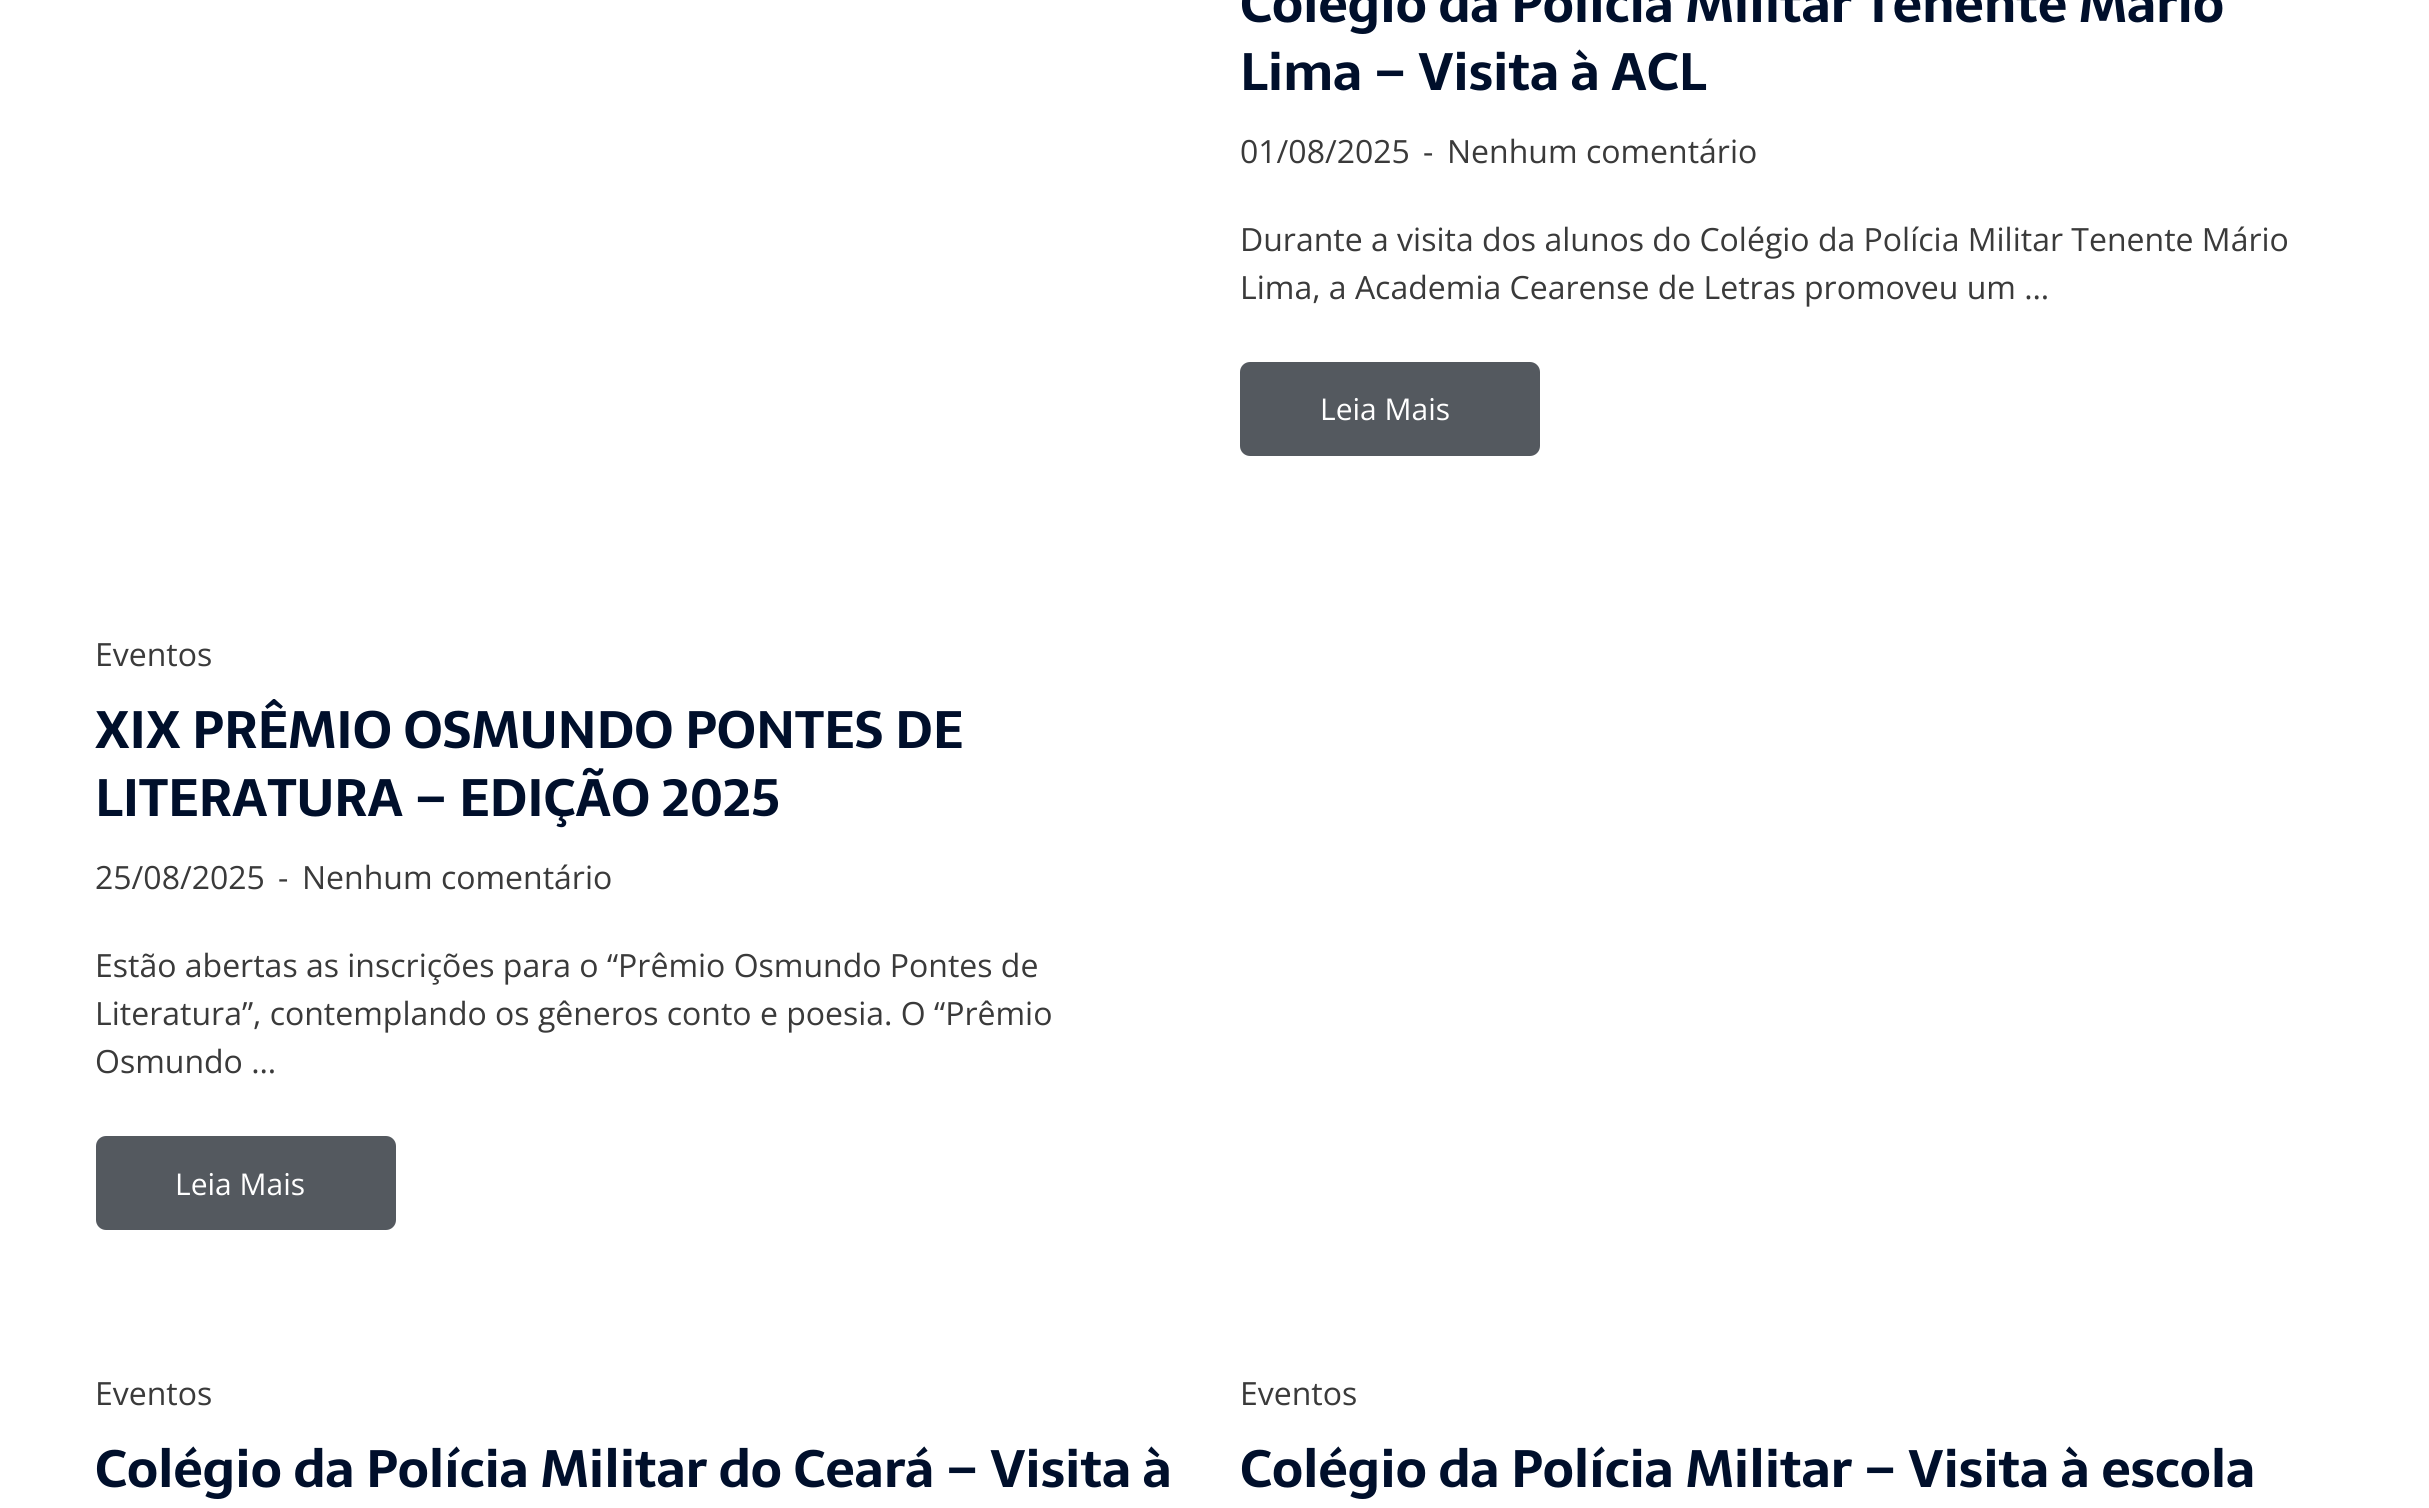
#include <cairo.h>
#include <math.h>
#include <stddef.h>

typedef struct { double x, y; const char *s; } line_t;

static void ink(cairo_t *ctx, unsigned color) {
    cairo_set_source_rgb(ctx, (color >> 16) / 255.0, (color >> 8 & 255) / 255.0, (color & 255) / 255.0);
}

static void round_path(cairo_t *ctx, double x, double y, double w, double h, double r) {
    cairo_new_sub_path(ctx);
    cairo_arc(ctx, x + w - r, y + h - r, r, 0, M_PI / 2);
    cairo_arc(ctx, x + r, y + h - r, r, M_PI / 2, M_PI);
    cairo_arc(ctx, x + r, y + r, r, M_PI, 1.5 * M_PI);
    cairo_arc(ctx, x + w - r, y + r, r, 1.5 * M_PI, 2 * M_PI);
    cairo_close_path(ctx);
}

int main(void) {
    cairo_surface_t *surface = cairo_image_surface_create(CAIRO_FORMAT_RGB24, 2429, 1508);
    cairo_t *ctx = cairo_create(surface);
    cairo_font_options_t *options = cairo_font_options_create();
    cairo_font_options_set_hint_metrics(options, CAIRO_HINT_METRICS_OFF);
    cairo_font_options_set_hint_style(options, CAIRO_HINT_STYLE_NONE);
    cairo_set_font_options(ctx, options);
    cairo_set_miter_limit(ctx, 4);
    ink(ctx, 0xFFFFFF);
    cairo_paint(ctx);
    cairo_select_font_face(ctx, "Sarala", CAIRO_FONT_SLANT_NORMAL, CAIRO_FONT_WEIGHT_BOLD);
    cairo_set_font_size(ctx, 52);
    ink(ctx, 0x000F2B);
    cairo_move_to(ctx, 1240, 22);
    cairo_show_text(ctx, "Colégio da Polícia Militar Tenente Mário");
    cairo_move_to(ctx, 1240, 90);
    cairo_show_text(ctx, "Lima – Visita à ACL");
    cairo_select_font_face(ctx, "Open Sans", CAIRO_FONT_SLANT_NORMAL, CAIRO_FONT_WEIGHT_NORMAL);
    cairo_set_font_size(ctx, 32);
    ink(ctx, 0x3A3A3A);
    {
        static const line_t items[] = {
            {1240, 163, "01/08/2025"},
            {1423, 163, "-"},
            {1447, 163, "Nenhum comentário"},
            {1240, 251, "Durante a visita dos alunos do Colégio da Polícia Militar Tenente Mário"},
            {1240, 299, "Lima, a Academia Cearense de Letras promoveu um …"},
        };
        for (size_t i = 0; i < sizeof items / sizeof *items; i++) {
            cairo_move_to(ctx, items[i].x, items[i].y);
            cairo_show_text(ctx, items[i].s);
        }
    }
    ink(ctx, 0x54595F);
    round_path(ctx, 1240, 362, 300, 94, 10);
    cairo_fill(ctx);
    cairo_set_font_size(ctx, 30);
    ink(ctx, 0xFFFFFF);
    cairo_move_to(ctx, 1320, 420);
    cairo_show_text(ctx, "Leia Mais");
    cairo_set_font_size(ctx, 32);
    ink(ctx, 0x3A3A3A);
    cairo_move_to(ctx, 95, 666);
    cairo_show_text(ctx, "Eventos");
    cairo_select_font_face(ctx, "Sarala", CAIRO_FONT_SLANT_NORMAL, CAIRO_FONT_WEIGHT_BOLD);
    cairo_set_font_size(ctx, 52);
    ink(ctx, 0x000F2B);
    cairo_move_to(ctx, 95, 748);
    cairo_show_text(ctx, "XIX PRÊMIO OSMUNDO PONTES DE");
    cairo_move_to(ctx, 95, 816);
    cairo_show_text(ctx, "LITERATURA – EDIÇÃO 2025");
    cairo_select_font_face(ctx, "Open Sans", CAIRO_FONT_SLANT_NORMAL, CAIRO_FONT_WEIGHT_NORMAL);
    cairo_set_font_size(ctx, 32);
    ink(ctx, 0x3A3A3A);
    {
        static const line_t items[] = {
            {95, 889, "25/08/2025"},
            {278, 889, "-"},
            {302, 889, "Nenhum comentário"},
            {95, 977, "Estão abertas as inscrições para o “Prêmio Osmundo Pontes de"},
            {95, 1025, "Literatura”, contemplando os gêneros conto e poesia. O “Prêmio"},
            {95, 1073, "Osmundo …"},
        };
        for (size_t i = 0; i < sizeof items / sizeof *items; i++) {
            cairo_move_to(ctx, items[i].x, items[i].y);
            cairo_show_text(ctx, items[i].s);
        }
    }
    ink(ctx, 0x54595F);
    round_path(ctx, 96, 1136, 300, 94, 10);
    cairo_fill(ctx);
    cairo_set_font_size(ctx, 30);
    ink(ctx, 0xFFFFFF);
    cairo_move_to(ctx, 175, 1195);
    cairo_show_text(ctx, "Leia Mais");
    cairo_set_font_size(ctx, 32);
    ink(ctx, 0x3A3A3A);
    cairo_move_to(ctx, 95, 1405);
    cairo_show_text(ctx, "Eventos");
    cairo_select_font_face(ctx, "Sarala", CAIRO_FONT_SLANT_NORMAL, CAIRO_FONT_WEIGHT_BOLD);
    cairo_set_font_size(ctx, 52);
    ink(ctx, 0x000F2B);
    cairo_move_to(ctx, 95, 1487);
    cairo_show_text(ctx, "Colégio da Polícia Militar do Ceará – Visita à");
    cairo_select_font_face(ctx, "Open Sans", CAIRO_FONT_SLANT_NORMAL, CAIRO_FONT_WEIGHT_NORMAL);
    cairo_set_font_size(ctx, 32);
    ink(ctx, 0x3A3A3A);
    cairo_move_to(ctx, 1240, 1405);
    cairo_show_text(ctx, "Eventos");
    cairo_select_font_face(ctx, "Sarala", CAIRO_FONT_SLANT_NORMAL, CAIRO_FONT_WEIGHT_BOLD);
    cairo_set_font_size(ctx, 52);
    ink(ctx, 0x000F2B);
    cairo_move_to(ctx, 1240, 1487);
    cairo_show_text(ctx, "Colégio da Polícia Militar – Visita à escola");
    cairo_surface_write_to_png(surface, "image.png");
    cairo_font_options_destroy(options);
    cairo_destroy(ctx);
    cairo_surface_destroy(surface);
    return 0;
}
